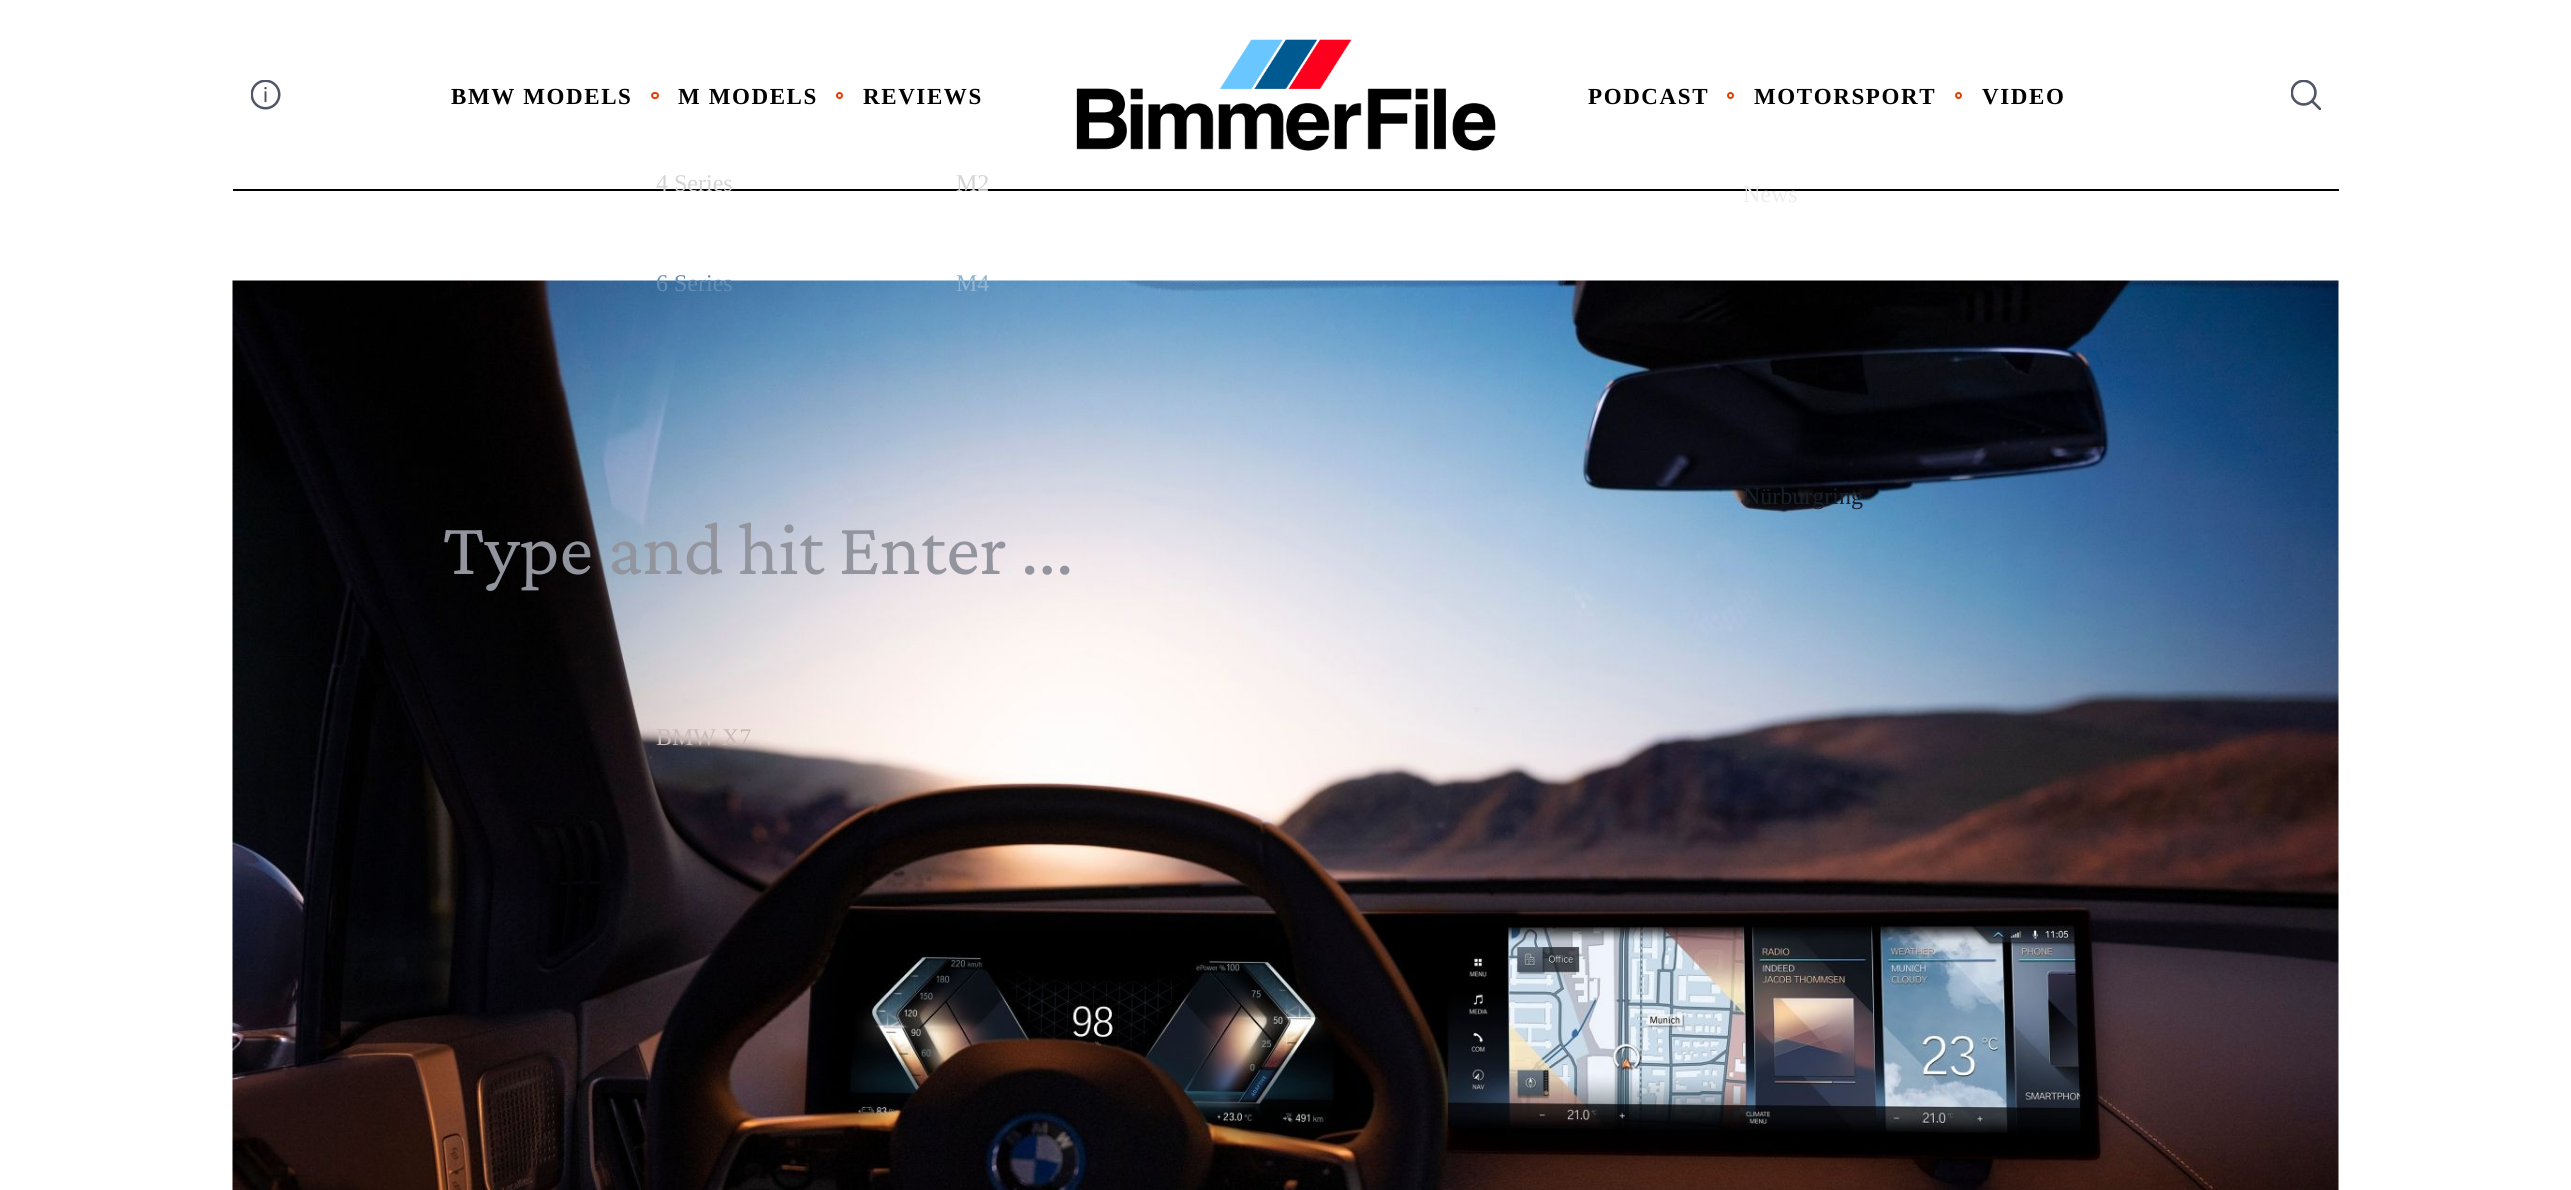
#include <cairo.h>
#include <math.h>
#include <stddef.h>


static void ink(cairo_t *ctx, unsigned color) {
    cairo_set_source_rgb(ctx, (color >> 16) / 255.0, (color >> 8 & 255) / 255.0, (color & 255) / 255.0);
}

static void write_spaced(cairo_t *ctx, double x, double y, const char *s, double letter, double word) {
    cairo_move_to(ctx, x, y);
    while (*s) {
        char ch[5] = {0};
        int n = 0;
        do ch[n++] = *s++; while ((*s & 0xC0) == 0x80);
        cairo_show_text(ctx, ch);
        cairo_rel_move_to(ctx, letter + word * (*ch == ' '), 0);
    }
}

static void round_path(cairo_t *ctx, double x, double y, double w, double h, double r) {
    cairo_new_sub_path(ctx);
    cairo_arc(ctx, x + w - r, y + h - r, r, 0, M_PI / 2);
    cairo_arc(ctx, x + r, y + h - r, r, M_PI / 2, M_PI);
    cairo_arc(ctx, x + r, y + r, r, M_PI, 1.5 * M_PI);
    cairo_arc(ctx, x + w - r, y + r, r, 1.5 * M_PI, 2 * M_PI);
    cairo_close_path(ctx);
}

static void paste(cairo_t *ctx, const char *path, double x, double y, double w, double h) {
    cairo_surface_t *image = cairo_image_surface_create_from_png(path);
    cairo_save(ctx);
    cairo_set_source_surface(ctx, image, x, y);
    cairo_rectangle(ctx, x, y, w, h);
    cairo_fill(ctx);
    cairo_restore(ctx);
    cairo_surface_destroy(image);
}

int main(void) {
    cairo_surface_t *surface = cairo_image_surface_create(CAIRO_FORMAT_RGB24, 2571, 1190);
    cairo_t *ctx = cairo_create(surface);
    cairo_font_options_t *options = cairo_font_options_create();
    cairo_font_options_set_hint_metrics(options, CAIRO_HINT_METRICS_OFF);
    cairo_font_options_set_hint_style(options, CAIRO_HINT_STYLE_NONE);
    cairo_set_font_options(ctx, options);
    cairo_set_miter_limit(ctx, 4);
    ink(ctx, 0xFFFFFF);
    cairo_paint(ctx);
    paste(ctx, "media/1.png", 251, 80, 30, 30);
    cairo_select_font_face(ctx, "Liberation Serif", CAIRO_FONT_SLANT_NORMAL, CAIRO_FONT_WEIGHT_BOLD);
    cairo_set_font_size(ctx, 23);
    ink(ctx, 0x000000);
    write_spaced(ctx, 451, 104, "BMW MODELS", 1.6, 0);
    round_path(ctx, 652, 93, 6, 5, 2.5);
    ink(ctx, 0xEA3E00);
    cairo_stroke(ctx);
    ink(ctx, 0x000000);
    write_spaced(ctx, 678, 104, "M MODELS", 1.6, 0);
    cairo_new_path(ctx);
    cairo_arc(ctx, 839.5, 95.5, 2.5, 0, 2 * M_PI);
    ink(ctx, 0xEA3E00);
    cairo_stroke(ctx);
    ink(ctx, 0x000000);
    write_spaced(ctx, 863, 104, "REVIEWS", 1.6, 0);
    paste(ctx, "media/2.png", 1076, 39, 420, 112);
    write_spaced(ctx, 1588, 104, "PODCAST", 1.6, 0);
    cairo_new_path(ctx);
    cairo_arc(ctx, 1730.5, 95.5, 2.5, 0, 2 * M_PI);
    ink(ctx, 0xEA3E00);
    cairo_stroke(ctx);
    ink(ctx, 0x000000);
    write_spaced(ctx, 1754, 104, "MOTORSPORT", 1.6, 0);
    cairo_new_path(ctx);
    cairo_arc(ctx, 1958.5, 95.5, 2.5, 0, 2 * M_PI);
    ink(ctx, 0xEA3E00);
    cairo_stroke(ctx);
    ink(ctx, 0x000000);
    cairo_rectangle(ctx, 233, 189, 2106, 2);
    cairo_fill(ctx);
    cairo_select_font_face(ctx, "Liberation Serif", CAIRO_FONT_SLANT_NORMAL, CAIRO_FONT_WEIGHT_NORMAL);
    cairo_set_font_size(ctx, 24);
    ink(ctx, 0xEDEDED);
    cairo_move_to(ctx, 1743, 202);
    cairo_show_text(ctx, "News");
    paste(ctx, "media/4.png", 232, 280, 2107, 910);
    ink(ctx, 0x16202A);
    cairo_move_to(ctx, 1743, 504);
    cairo_show_text(ctx, "Nürburgring");
    cairo_select_font_face(ctx, "Liberation Serif", CAIRO_FONT_SLANT_NORMAL, CAIRO_FONT_WEIGHT_BOLD);
    cairo_set_font_size(ctx, 23);
    ink(ctx, 0x000000);
    write_spaced(ctx, 1982, 104, "VIDEO", 1.6, 0);
    paste(ctx, "media/3.png", 2291, 80, 30, 30);
    cairo_select_font_face(ctx, "Liberation Serif", CAIRO_FONT_SLANT_NORMAL, CAIRO_FONT_WEIGHT_NORMAL);
    cairo_set_font_size(ctx, 24);
    ink(ctx, 0xD4D4D4);
    cairo_move_to(ctx, 656, 191);
    cairo_show_text(ctx, "4 Series");
    ink(ctx, 0x648EB5);
    cairo_move_to(ctx, 656, 291);
    cairo_show_text(ctx, "6 Series");
    ink(ctx, 0xC8BBB8);
    cairo_move_to(ctx, 656, 745);
    cairo_show_text(ctx, "BMW X7");
    ink(ctx, 0xD4D4D4);
    cairo_move_to(ctx, 956, 191);
    cairo_show_text(ctx, "M2");
    ink(ctx, 0x8FB4D3);
    cairo_move_to(ctx, 956, 291);
    cairo_show_text(ctx, "M4");
    cairo_select_font_face(ctx, "Crimson Pro", CAIRO_FONT_SLANT_NORMAL, CAIRO_FONT_WEIGHT_NORMAL);
    cairo_set_font_size(ctx, 76.25);
    ink(ctx, 0x93959E);
    cairo_move_to(ctx, 443, 574);
    cairo_show_text(ctx, "Type and hit Enter ...");
    cairo_surface_write_to_png(surface, "image.png");
    cairo_font_options_destroy(options);
    cairo_destroy(ctx);
    cairo_surface_destroy(surface);
    return 0;
}
